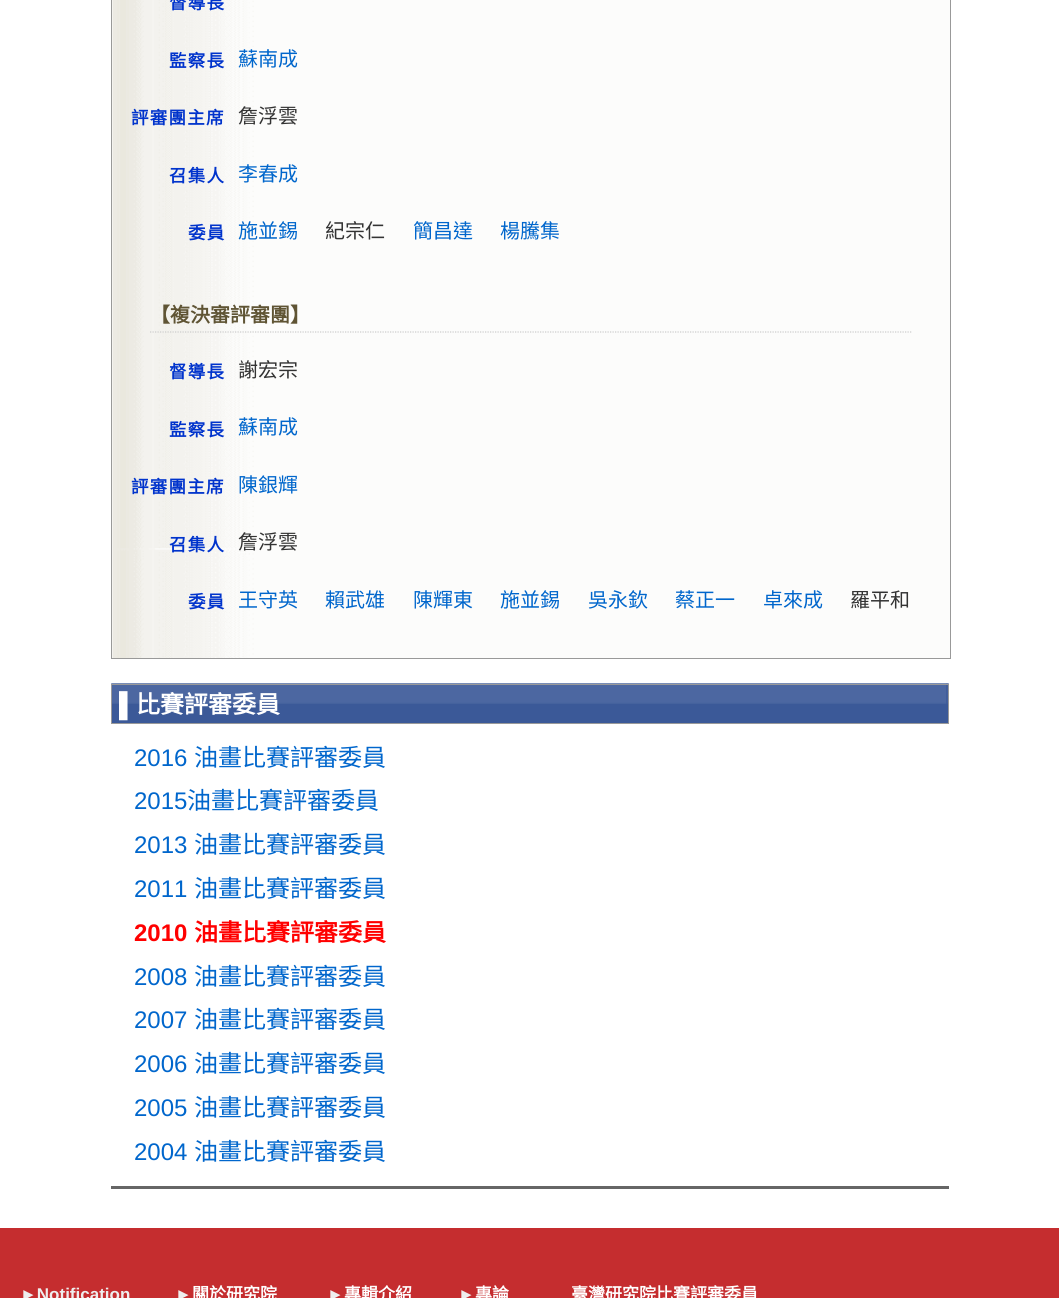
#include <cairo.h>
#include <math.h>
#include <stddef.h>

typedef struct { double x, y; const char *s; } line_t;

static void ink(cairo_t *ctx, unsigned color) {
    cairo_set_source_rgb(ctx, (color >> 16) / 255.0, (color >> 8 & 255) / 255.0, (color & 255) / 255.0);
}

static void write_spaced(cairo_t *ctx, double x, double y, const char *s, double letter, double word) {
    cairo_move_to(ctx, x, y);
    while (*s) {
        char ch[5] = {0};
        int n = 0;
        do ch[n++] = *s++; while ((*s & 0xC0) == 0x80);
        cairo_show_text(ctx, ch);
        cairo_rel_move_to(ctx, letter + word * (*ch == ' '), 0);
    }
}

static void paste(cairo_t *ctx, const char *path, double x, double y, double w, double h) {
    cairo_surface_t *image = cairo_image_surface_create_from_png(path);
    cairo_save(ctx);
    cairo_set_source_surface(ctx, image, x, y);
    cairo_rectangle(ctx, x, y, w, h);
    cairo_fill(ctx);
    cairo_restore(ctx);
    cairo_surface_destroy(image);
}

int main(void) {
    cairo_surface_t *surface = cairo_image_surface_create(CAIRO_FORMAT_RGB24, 1059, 1298);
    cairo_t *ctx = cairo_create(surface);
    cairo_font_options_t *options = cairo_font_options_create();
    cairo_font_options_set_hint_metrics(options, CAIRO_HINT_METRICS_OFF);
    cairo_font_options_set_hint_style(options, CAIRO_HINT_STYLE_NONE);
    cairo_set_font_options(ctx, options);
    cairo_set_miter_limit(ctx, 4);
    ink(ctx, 0xFFFFFF);
    cairo_paint(ctx);
    ink(ctx, 0xFCFCFB);
    cairo_rectangle(ctx, 112, 0, 838, 658);
    cairo_fill(ctx);
    paste(ctx, "media/1.png", 112, 0, 142, 658);
    cairo_rectangle(ctx, 111.5, -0.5, 839, 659);
    ink(ctx, 0x999999);
    cairo_set_line_width(ctx, 1);
    cairo_stroke(ctx);
    cairo_select_font_face(ctx, "Noto Sans CJK TC", CAIRO_FONT_SLANT_NORMAL, CAIRO_FONT_WEIGHT_BOLD);
    cairo_set_font_size(ctx, 17.5);
    ink(ctx, 0x0033CC);
    write_spaced(ctx, 169, 9, "督導長", 1.25, 0);
    write_spaced(ctx, 169, 67, "監察長", 1.25, 0);
    cairo_select_font_face(ctx, "Noto Sans CJK TC", CAIRO_FONT_SLANT_NORMAL, CAIRO_FONT_WEIGHT_NORMAL);
    cairo_set_font_size(ctx, 20);
    ink(ctx, 0x0066CC);
    cairo_move_to(ctx, 238, 66);
    cairo_show_text(ctx, "蘇南成");
    cairo_select_font_face(ctx, "Noto Sans CJK TC", CAIRO_FONT_SLANT_NORMAL, CAIRO_FONT_WEIGHT_BOLD);
    cairo_set_font_size(ctx, 17.5);
    ink(ctx, 0x0033CC);
    write_spaced(ctx, 131, 124, "評審團主席", 1.25, 0);
    cairo_select_font_face(ctx, "Noto Sans CJK TC", CAIRO_FONT_SLANT_NORMAL, CAIRO_FONT_WEIGHT_NORMAL);
    cairo_set_font_size(ctx, 20);
    ink(ctx, 0x333333);
    cairo_move_to(ctx, 238, 123);
    cairo_show_text(ctx, "詹浮雲");
    cairo_select_font_face(ctx, "Noto Sans CJK TC", CAIRO_FONT_SLANT_NORMAL, CAIRO_FONT_WEIGHT_BOLD);
    cairo_set_font_size(ctx, 17.5);
    ink(ctx, 0x0033CC);
    write_spaced(ctx, 169, 182, "召集人", 1.25, 0);
    cairo_select_font_face(ctx, "Noto Sans CJK TC", CAIRO_FONT_SLANT_NORMAL, CAIRO_FONT_WEIGHT_NORMAL);
    cairo_set_font_size(ctx, 20);
    ink(ctx, 0x0066CC);
    cairo_move_to(ctx, 238, 181);
    cairo_show_text(ctx, "李春成");
    cairo_select_font_face(ctx, "Noto Sans CJK TC", CAIRO_FONT_SLANT_NORMAL, CAIRO_FONT_WEIGHT_BOLD);
    cairo_set_font_size(ctx, 17.5);
    ink(ctx, 0x0033CC);
    write_spaced(ctx, 188, 239, "委員", 1.25, 0);
    cairo_select_font_face(ctx, "Noto Sans CJK TC", CAIRO_FONT_SLANT_NORMAL, CAIRO_FONT_WEIGHT_NORMAL);
    cairo_set_font_size(ctx, 20);
    ink(ctx, 0x0066CC);
    cairo_move_to(ctx, 238, 238);
    cairo_show_text(ctx, "施並錫");
    ink(ctx, 0x333333);
    cairo_move_to(ctx, 325, 238);
    cairo_show_text(ctx, "紀宗仁");
    ink(ctx, 0x0066CC);
    cairo_move_to(ctx, 413, 238);
    cairo_show_text(ctx, "簡昌達");
    cairo_move_to(ctx, 500, 238);
    cairo_show_text(ctx, "楊騰集");
    cairo_new_path(ctx);
    cairo_move_to(ctx, 150, 332);
    cairo_line_to(ctx, 912.5, 332);
    ink(ctx, 0xCCCCCC);
    cairo_set_line_width(ctx, 1.2);
    cairo_set_dash(ctx, (double[]){1.25, 1.25}, 2, 0);
    cairo_stroke(ctx);
    cairo_select_font_face(ctx, "Noto Sans CJK TC", CAIRO_FONT_SLANT_NORMAL, CAIRO_FONT_WEIGHT_BOLD);
    ink(ctx, 0x5F5434);
    cairo_move_to(ctx, 150, 322);
    cairo_show_text(ctx, "【複決審評審團】");
    cairo_set_font_size(ctx, 17.5);
    ink(ctx, 0x0033CC);
    write_spaced(ctx, 169, 378, "督導長", 1.25, 0);
    cairo_select_font_face(ctx, "Noto Sans CJK TC", CAIRO_FONT_SLANT_NORMAL, CAIRO_FONT_WEIGHT_NORMAL);
    cairo_set_font_size(ctx, 20);
    ink(ctx, 0x333333);
    cairo_move_to(ctx, 238, 377);
    cairo_show_text(ctx, "謝宏宗");
    cairo_select_font_face(ctx, "Noto Sans CJK TC", CAIRO_FONT_SLANT_NORMAL, CAIRO_FONT_WEIGHT_BOLD);
    cairo_set_font_size(ctx, 17.5);
    ink(ctx, 0x0033CC);
    write_spaced(ctx, 169, 436, "監察長", 1.25, 0);
    cairo_select_font_face(ctx, "Noto Sans CJK TC", CAIRO_FONT_SLANT_NORMAL, CAIRO_FONT_WEIGHT_NORMAL);
    cairo_set_font_size(ctx, 20);
    ink(ctx, 0x0066CC);
    cairo_move_to(ctx, 238, 434);
    cairo_show_text(ctx, "蘇南成");
    cairo_select_font_face(ctx, "Noto Sans CJK TC", CAIRO_FONT_SLANT_NORMAL, CAIRO_FONT_WEIGHT_BOLD);
    cairo_set_font_size(ctx, 17.5);
    ink(ctx, 0x0033CC);
    write_spaced(ctx, 131, 493, "評審團主席", 1.25, 0);
    cairo_select_font_face(ctx, "Noto Sans CJK TC", CAIRO_FONT_SLANT_NORMAL, CAIRO_FONT_WEIGHT_NORMAL);
    cairo_set_font_size(ctx, 20);
    ink(ctx, 0x0066CC);
    cairo_move_to(ctx, 238, 492);
    cairo_show_text(ctx, "陳銀輝");
    cairo_select_font_face(ctx, "Noto Sans CJK TC", CAIRO_FONT_SLANT_NORMAL, CAIRO_FONT_WEIGHT_BOLD);
    cairo_set_font_size(ctx, 17.5);
    ink(ctx, 0x0033CC);
    write_spaced(ctx, 169, 551, "召集人", 1.25, 0);
    cairo_select_font_face(ctx, "Noto Sans CJK TC", CAIRO_FONT_SLANT_NORMAL, CAIRO_FONT_WEIGHT_NORMAL);
    cairo_set_font_size(ctx, 20);
    ink(ctx, 0x333333);
    cairo_move_to(ctx, 238, 549);
    cairo_show_text(ctx, "詹浮雲");
    cairo_select_font_face(ctx, "Noto Sans CJK TC", CAIRO_FONT_SLANT_NORMAL, CAIRO_FONT_WEIGHT_BOLD);
    cairo_set_font_size(ctx, 17.5);
    ink(ctx, 0x0033CC);
    write_spaced(ctx, 188, 608, "委員", 1.25, 0);
    cairo_select_font_face(ctx, "Noto Sans CJK TC", CAIRO_FONT_SLANT_NORMAL, CAIRO_FONT_WEIGHT_NORMAL);
    cairo_set_font_size(ctx, 20);
    ink(ctx, 0x0066CC);
    {
        static const line_t items[] = {
            {238, 607, "王守英"},
            {325, 607, "賴武雄"},
            {413, 607, "陳輝東"},
            {500, 607, "施並錫"},
            {588, 607, "吳永欽"},
            {675, 607, "蔡正一"},
            {763, 607, "卓來成"},
        };
        for (size_t i = 0; i < sizeof items / sizeof *items; i++) {
            cairo_move_to(ctx, items[i].x, items[i].y);
            cairo_show_text(ctx, items[i].s);
        }
    }
    ink(ctx, 0x333333);
    cairo_move_to(ctx, 850, 607);
    cairo_show_text(ctx, "羅平和");
    paste(ctx, "media/2.png", 111, 683, 838, 40);
    cairo_rectangle(ctx, 111.5, 684.5, 837, 39);
    ink(ctx, 0x999999);
    cairo_set_line_width(ctx, 1);
    cairo_set_dash(ctx, NULL, 0, 0);
    cairo_stroke(ctx);
    cairo_select_font_face(ctx, "Liberation Sans", CAIRO_FONT_SLANT_NORMAL, CAIRO_FONT_WEIGHT_BOLD);
    cairo_set_font_size(ctx, 24);
    ink(ctx, 0xFFFFFF);
    cairo_move_to(ctx, 119, 713);
    cairo_show_text(ctx, "▌");
    cairo_select_font_face(ctx, "Noto Sans CJK TC", CAIRO_FONT_SLANT_NORMAL, CAIRO_FONT_WEIGHT_BOLD);
    cairo_move_to(ctx, 136, 713);
    cairo_show_text(ctx, "比賽評審委員");
    ink(ctx, 0x666666);
    cairo_rectangle(ctx, 111, 1186, 838, 3);
    cairo_fill(ctx);
    cairo_select_font_face(ctx, "Liberation Sans", CAIRO_FONT_SLANT_NORMAL, CAIRO_FONT_WEIGHT_NORMAL);
    ink(ctx, 0x0066CC);
    cairo_move_to(ctx, 134, 766);
    cairo_show_text(ctx, "2016");
    cairo_select_font_face(ctx, "Noto Sans CJK TC", CAIRO_FONT_SLANT_NORMAL, CAIRO_FONT_WEIGHT_NORMAL);
    cairo_move_to(ctx, 194, 766);
    cairo_show_text(ctx, "油畫比賽評審委員");
    cairo_select_font_face(ctx, "Liberation Sans", CAIRO_FONT_SLANT_NORMAL, CAIRO_FONT_WEIGHT_NORMAL);
    cairo_move_to(ctx, 134, 809);
    cairo_show_text(ctx, "2015");
    cairo_select_font_face(ctx, "Noto Sans CJK TC", CAIRO_FONT_SLANT_NORMAL, CAIRO_FONT_WEIGHT_NORMAL);
    cairo_move_to(ctx, 187, 809);
    cairo_show_text(ctx, "油畫比賽評審委員");
    cairo_select_font_face(ctx, "Liberation Sans", CAIRO_FONT_SLANT_NORMAL, CAIRO_FONT_WEIGHT_NORMAL);
    cairo_move_to(ctx, 134, 853);
    cairo_show_text(ctx, "2013");
    cairo_select_font_face(ctx, "Noto Sans CJK TC", CAIRO_FONT_SLANT_NORMAL, CAIRO_FONT_WEIGHT_NORMAL);
    cairo_move_to(ctx, 194, 853);
    cairo_show_text(ctx, "油畫比賽評審委員");
    cairo_select_font_face(ctx, "Liberation Sans", CAIRO_FONT_SLANT_NORMAL, CAIRO_FONT_WEIGHT_NORMAL);
    cairo_move_to(ctx, 134, 897);
    cairo_show_text(ctx, "2011");
    cairo_select_font_face(ctx, "Noto Sans CJK TC", CAIRO_FONT_SLANT_NORMAL, CAIRO_FONT_WEIGHT_NORMAL);
    cairo_move_to(ctx, 194, 897);
    cairo_show_text(ctx, "油畫比賽評審委員");
    cairo_select_font_face(ctx, "Liberation Sans", CAIRO_FONT_SLANT_NORMAL, CAIRO_FONT_WEIGHT_BOLD);
    ink(ctx, 0xFF0000);
    cairo_move_to(ctx, 134, 941);
    cairo_show_text(ctx, "2010");
    cairo_select_font_face(ctx, "Noto Sans CJK TC", CAIRO_FONT_SLANT_NORMAL, CAIRO_FONT_WEIGHT_BOLD);
    cairo_move_to(ctx, 194, 941);
    cairo_show_text(ctx, "油畫比賽評審委員");
    cairo_select_font_face(ctx, "Liberation Sans", CAIRO_FONT_SLANT_NORMAL, CAIRO_FONT_WEIGHT_NORMAL);
    ink(ctx, 0x0066CC);
    cairo_move_to(ctx, 134, 985);
    cairo_show_text(ctx, "2008");
    cairo_select_font_face(ctx, "Noto Sans CJK TC", CAIRO_FONT_SLANT_NORMAL, CAIRO_FONT_WEIGHT_NORMAL);
    cairo_move_to(ctx, 194, 985);
    cairo_show_text(ctx, "油畫比賽評審委員");
    cairo_select_font_face(ctx, "Liberation Sans", CAIRO_FONT_SLANT_NORMAL, CAIRO_FONT_WEIGHT_NORMAL);
    cairo_move_to(ctx, 134, 1028);
    cairo_show_text(ctx, "2007");
    cairo_select_font_face(ctx, "Noto Sans CJK TC", CAIRO_FONT_SLANT_NORMAL, CAIRO_FONT_WEIGHT_NORMAL);
    cairo_move_to(ctx, 194, 1028);
    cairo_show_text(ctx, "油畫比賽評審委員");
    cairo_select_font_face(ctx, "Liberation Sans", CAIRO_FONT_SLANT_NORMAL, CAIRO_FONT_WEIGHT_NORMAL);
    cairo_move_to(ctx, 134, 1072);
    cairo_show_text(ctx, "2006");
    cairo_select_font_face(ctx, "Noto Sans CJK TC", CAIRO_FONT_SLANT_NORMAL, CAIRO_FONT_WEIGHT_NORMAL);
    cairo_move_to(ctx, 194, 1072);
    cairo_show_text(ctx, "油畫比賽評審委員");
    cairo_select_font_face(ctx, "Liberation Sans", CAIRO_FONT_SLANT_NORMAL, CAIRO_FONT_WEIGHT_NORMAL);
    cairo_move_to(ctx, 134, 1116);
    cairo_show_text(ctx, "2005");
    cairo_select_font_face(ctx, "Noto Sans CJK TC", CAIRO_FONT_SLANT_NORMAL, CAIRO_FONT_WEIGHT_NORMAL);
    cairo_move_to(ctx, 194, 1116);
    cairo_show_text(ctx, "油畫比賽評審委員");
    cairo_select_font_face(ctx, "Liberation Sans", CAIRO_FONT_SLANT_NORMAL, CAIRO_FONT_WEIGHT_NORMAL);
    cairo_move_to(ctx, 134, 1160);
    cairo_show_text(ctx, "2004");
    cairo_select_font_face(ctx, "Noto Sans CJK TC", CAIRO_FONT_SLANT_NORMAL, CAIRO_FONT_WEIGHT_NORMAL);
    cairo_move_to(ctx, 194, 1160);
    cairo_show_text(ctx, "油畫比賽評審委員");
    ink(ctx, 0xC52D2F);
    cairo_rectangle(ctx, 0, 1228, 1059, 70);
    cairo_fill(ctx);
    cairo_select_font_face(ctx, "Liberation Sans", CAIRO_FONT_SLANT_NORMAL, CAIRO_FONT_WEIGHT_BOLD);
    cairo_set_font_size(ctx, 17);
    ink(ctx, 0xEEEEEE);
    cairo_move_to(ctx, 20, 1300);
    cairo_show_text(ctx, "►Notification");
    cairo_move_to(ctx, 175, 1300);
    cairo_show_text(ctx, "►");
    cairo_select_font_face(ctx, "Noto Sans CJK TC", CAIRO_FONT_SLANT_NORMAL, CAIRO_FONT_WEIGHT_BOLD);
    ink(ctx, 0xFFFFFF);
    cairo_move_to(ctx, 192, 1300);
    cairo_show_text(ctx, "關於研究院");
    cairo_select_font_face(ctx, "Liberation Sans", CAIRO_FONT_SLANT_NORMAL, CAIRO_FONT_WEIGHT_BOLD);
    ink(ctx, 0xEEEEEE);
    cairo_move_to(ctx, 327, 1300);
    cairo_show_text(ctx, "►");
    cairo_select_font_face(ctx, "Noto Sans CJK TC", CAIRO_FONT_SLANT_NORMAL, CAIRO_FONT_WEIGHT_BOLD);
    ink(ctx, 0xFFFFFF);
    cairo_move_to(ctx, 344, 1300);
    cairo_show_text(ctx, "專輯介紹");
    cairo_select_font_face(ctx, "Liberation Sans", CAIRO_FONT_SLANT_NORMAL, CAIRO_FONT_WEIGHT_BOLD);
    ink(ctx, 0xEEEEEE);
    cairo_move_to(ctx, 458, 1300);
    cairo_show_text(ctx, "►");
    cairo_select_font_face(ctx, "Noto Sans CJK TC", CAIRO_FONT_SLANT_NORMAL, CAIRO_FONT_WEIGHT_BOLD);
    ink(ctx, 0xFFFFFF);
    cairo_move_to(ctx, 475, 1300);
    cairo_show_text(ctx, "專論");
    cairo_move_to(ctx, 571, 1300);
    cairo_show_text(ctx, "臺灣研究院比賽評審委員");
    cairo_surface_write_to_png(surface, "image.png");
    cairo_font_options_destroy(options);
    cairo_destroy(ctx);
    cairo_surface_destroy(surface);
    return 0;
}
